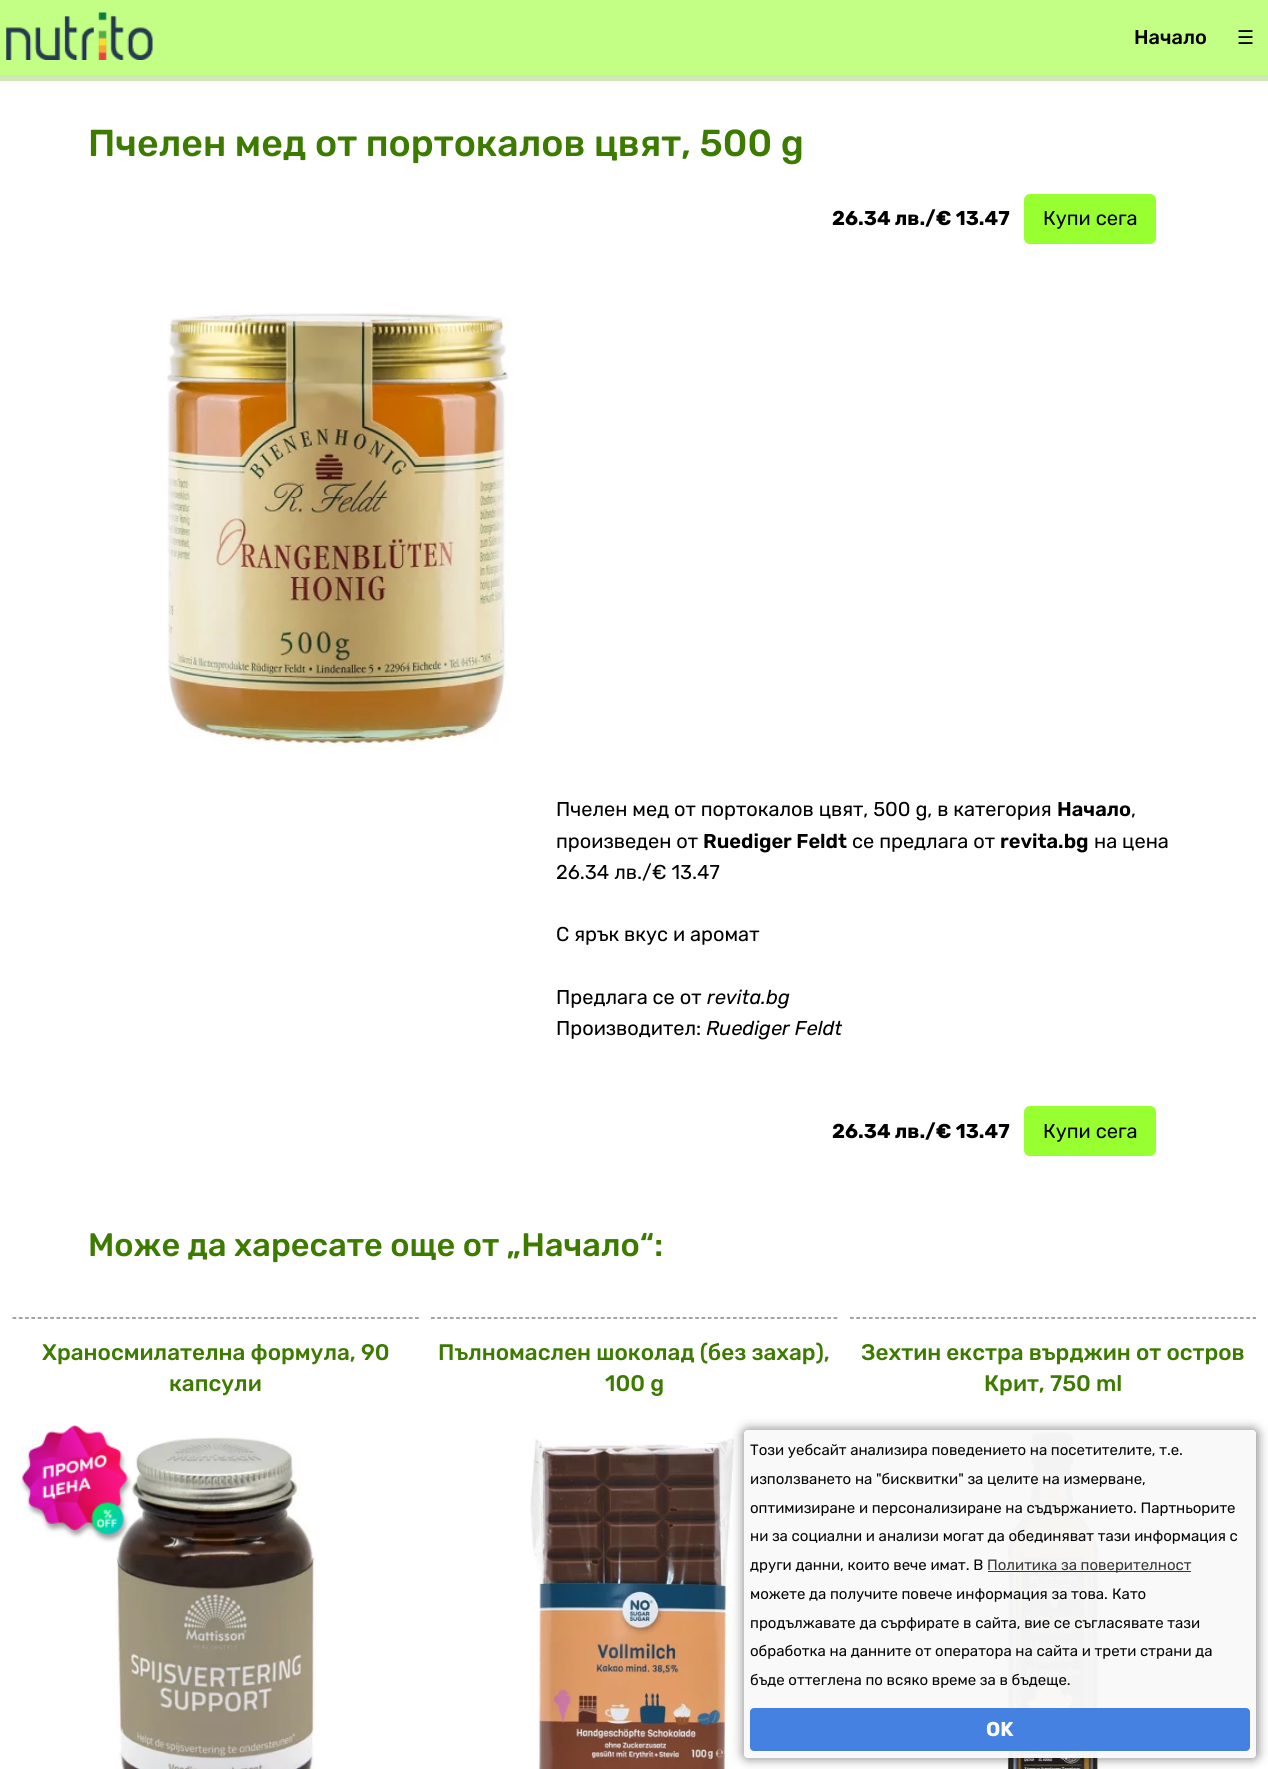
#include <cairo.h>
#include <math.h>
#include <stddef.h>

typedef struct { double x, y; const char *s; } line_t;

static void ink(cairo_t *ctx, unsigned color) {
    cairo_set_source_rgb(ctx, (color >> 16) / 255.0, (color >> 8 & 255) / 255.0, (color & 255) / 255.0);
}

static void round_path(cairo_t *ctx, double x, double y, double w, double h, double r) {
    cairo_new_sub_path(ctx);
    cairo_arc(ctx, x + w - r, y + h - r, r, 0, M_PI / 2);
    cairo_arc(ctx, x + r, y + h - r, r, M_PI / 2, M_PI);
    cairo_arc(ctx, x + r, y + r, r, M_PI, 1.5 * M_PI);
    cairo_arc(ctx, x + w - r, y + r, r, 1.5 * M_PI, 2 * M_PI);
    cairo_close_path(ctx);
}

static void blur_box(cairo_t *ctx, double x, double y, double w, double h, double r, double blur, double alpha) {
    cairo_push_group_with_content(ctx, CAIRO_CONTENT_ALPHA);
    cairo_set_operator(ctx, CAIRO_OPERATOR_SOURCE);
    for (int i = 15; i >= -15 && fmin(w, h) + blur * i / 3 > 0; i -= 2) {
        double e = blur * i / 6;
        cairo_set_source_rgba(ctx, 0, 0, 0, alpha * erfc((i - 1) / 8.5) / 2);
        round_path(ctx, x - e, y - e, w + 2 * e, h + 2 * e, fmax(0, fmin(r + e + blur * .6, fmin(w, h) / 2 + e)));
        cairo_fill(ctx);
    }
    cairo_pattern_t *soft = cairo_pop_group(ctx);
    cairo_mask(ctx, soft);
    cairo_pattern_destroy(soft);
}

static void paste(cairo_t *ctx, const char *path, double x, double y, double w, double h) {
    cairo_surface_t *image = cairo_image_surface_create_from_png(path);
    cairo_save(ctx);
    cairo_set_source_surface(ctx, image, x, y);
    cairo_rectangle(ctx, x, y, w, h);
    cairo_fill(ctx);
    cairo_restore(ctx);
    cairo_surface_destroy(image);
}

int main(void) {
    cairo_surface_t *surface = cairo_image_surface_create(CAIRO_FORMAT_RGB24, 1268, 1769);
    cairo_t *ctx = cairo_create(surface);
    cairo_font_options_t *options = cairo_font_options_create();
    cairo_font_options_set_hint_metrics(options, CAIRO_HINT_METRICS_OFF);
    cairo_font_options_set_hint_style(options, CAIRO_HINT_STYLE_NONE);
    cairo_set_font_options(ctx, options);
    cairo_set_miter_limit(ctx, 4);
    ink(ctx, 0xC2FF84);
    cairo_paint(ctx);
    ink(ctx, 0xD0E7B6);
    cairo_rectangle(ctx, 0, 75, 1268, 6);
    cairo_fill(ctx);
    paste(ctx, "media/1.png", 6, 12, 147, 48);
    cairo_select_font_face(ctx, "Rubik Medium", CAIRO_FONT_SLANT_NORMAL, CAIRO_FONT_WEIGHT_NORMAL);
    cairo_set_font_size(ctx, 20);
    ink(ctx, 0x000000);
    cairo_move_to(ctx, 1134, 44);
    cairo_show_text(ctx, "Начало");
    cairo_select_font_face(ctx, "DejaVu Sans", CAIRO_FONT_SLANT_NORMAL, CAIRO_FONT_WEIGHT_NORMAL);
    cairo_set_font_size(ctx, 19);
    cairo_move_to(ctx, 1237, 44);
    cairo_show_text(ctx, "☰");
    ink(ctx, 0xFFFFFF);
    cairo_rectangle(ctx, 0, 81, 1268, 1688);
    cairo_fill(ctx);
    cairo_select_font_face(ctx, "Rubik Medium", CAIRO_FONT_SLANT_NORMAL, CAIRO_FONT_WEIGHT_NORMAL);
    cairo_set_font_size(ctx, 37.5);
    ink(ctx, 0x3D7B00);
    cairo_move_to(ctx, 88, 156);
    cairo_show_text(ctx, "Пчелен мед от портокалов цвят, 500 g");
    cairo_select_font_face(ctx, "Rubik", CAIRO_FONT_SLANT_NORMAL, CAIRO_FONT_WEIGHT_BOLD);
    cairo_set_font_size(ctx, 20);
    ink(ctx, 0x000000);
    cairo_move_to(ctx, 832, 225);
    cairo_show_text(ctx, "26.34 лв./€ 13.47");
    ink(ctx, 0x98FF31);
    round_path(ctx, 1024, 194, 132, 50, 6);
    cairo_fill(ctx);
    cairo_select_font_face(ctx, "Rubik", CAIRO_FONT_SLANT_NORMAL, CAIRO_FONT_WEIGHT_NORMAL);
    ink(ctx, 0x000000);
    cairo_move_to(ctx, 1043, 225);
    cairo_show_text(ctx, "Купи сега");
    paste(ctx, "media/2.png", 167, 312, 343, 437);
    cairo_move_to(ctx, 556, 816);
    cairo_show_text(ctx, "Пчелен мед от портокалов цвят, 500 g, в категория");
    cairo_select_font_face(ctx, "Rubik SemiBold", CAIRO_FONT_SLANT_NORMAL, CAIRO_FONT_WEIGHT_NORMAL);
    cairo_move_to(ctx, 1057, 816);
    cairo_show_text(ctx, "Начало");
    cairo_select_font_face(ctx, "Rubik", CAIRO_FONT_SLANT_NORMAL, CAIRO_FONT_WEIGHT_NORMAL);
    cairo_move_to(ctx, 1131, 816);
    cairo_show_text(ctx, ",");
    cairo_move_to(ctx, 556, 848);
    cairo_show_text(ctx, "произведен от");
    cairo_select_font_face(ctx, "Rubik SemiBold", CAIRO_FONT_SLANT_NORMAL, CAIRO_FONT_WEIGHT_NORMAL);
    cairo_move_to(ctx, 703, 848);
    cairo_show_text(ctx, "Ruediger Feldt");
    cairo_select_font_face(ctx, "Rubik", CAIRO_FONT_SLANT_NORMAL, CAIRO_FONT_WEIGHT_NORMAL);
    cairo_move_to(ctx, 852, 848);
    cairo_show_text(ctx, "се предлага от");
    cairo_select_font_face(ctx, "Rubik SemiBold", CAIRO_FONT_SLANT_NORMAL, CAIRO_FONT_WEIGHT_NORMAL);
    cairo_move_to(ctx, 1000, 848);
    cairo_show_text(ctx, "revita.bg");
    cairo_select_font_face(ctx, "Rubik", CAIRO_FONT_SLANT_NORMAL, CAIRO_FONT_WEIGHT_NORMAL);
    {
        static const line_t items[] = {
            {1094, 848, "на цена"},
            {556, 879, "26.34 лв./€ 13.47"},
            {556, 941, "С ярък вкус и аромат"},
            {556, 1004, "Предлага се от"},
        };
        for (size_t i = 0; i < sizeof items / sizeof *items; i++) {
            cairo_move_to(ctx, items[i].x, items[i].y);
            cairo_show_text(ctx, items[i].s);
        }
    }
    cairo_select_font_face(ctx, "Rubik", CAIRO_FONT_SLANT_ITALIC, CAIRO_FONT_WEIGHT_NORMAL);
    cairo_move_to(ctx, 707, 1004);
    cairo_show_text(ctx, "revita.bg");
    cairo_select_font_face(ctx, "Rubik", CAIRO_FONT_SLANT_NORMAL, CAIRO_FONT_WEIGHT_NORMAL);
    cairo_move_to(ctx, 556, 1035);
    cairo_show_text(ctx, "Производител:");
    cairo_select_font_face(ctx, "Rubik", CAIRO_FONT_SLANT_ITALIC, CAIRO_FONT_WEIGHT_NORMAL);
    cairo_move_to(ctx, 706, 1035);
    cairo_show_text(ctx, "Ruediger Feldt");
    cairo_select_font_face(ctx, "Rubik", CAIRO_FONT_SLANT_NORMAL, CAIRO_FONT_WEIGHT_BOLD);
    cairo_move_to(ctx, 832, 1138);
    cairo_show_text(ctx, "26.34 лв./€ 13.47");
    ink(ctx, 0x98FF31);
    round_path(ctx, 1024, 1106, 132, 50, 6);
    cairo_fill(ctx);
    cairo_select_font_face(ctx, "Rubik", CAIRO_FONT_SLANT_NORMAL, CAIRO_FONT_WEIGHT_NORMAL);
    ink(ctx, 0x000000);
    cairo_move_to(ctx, 1043, 1138);
    cairo_show_text(ctx, "Купи сега");
    cairo_select_font_face(ctx, "Rubik Medium", CAIRO_FONT_SLANT_NORMAL, CAIRO_FONT_WEIGHT_NORMAL);
    cairo_set_font_size(ctx, 32.5);
    ink(ctx, 0x3D7B00);
    cairo_move_to(ctx, 88, 1256);
    cairo_show_text(ctx, "Може да харесате още от „Начало“:");
    cairo_new_path(ctx);
    cairo_move_to(ctx, 12.5, 1318);
    cairo_line_to(ctx, 419, 1318);
    ink(ctx, 0x666666);
    cairo_set_line_width(ctx, 1.2);
    cairo_set_dash(ctx, (double[]){3.75, 2.54}, 2, 0);
    cairo_stroke(ctx);
    cairo_set_font_size(ctx, 22.5);
    ink(ctx, 0x3D7B00);
    cairo_move_to(ctx, 42, 1360);
    cairo_show_text(ctx, "Храносмилателна формула, 90");
    cairo_move_to(ctx, 169, 1391);
    cairo_show_text(ctx, "капсули");
    paste(ctx, "media/4.png", 114, 1437, 202, 332);
    paste(ctx, "media/3.png", 20, 1425, 112, 118);
    cairo_new_path(ctx);
    cairo_move_to(ctx, 431, 1318);
    cairo_line_to(ctx, 837.5, 1318);
    ink(ctx, 0x666666);
    cairo_stroke(ctx);
    ink(ctx, 0x3D7B00);
    cairo_move_to(ctx, 438, 1360);
    cairo_show_text(ctx, "Пълномаслен шоколад (без захар),");
    cairo_move_to(ctx, 605, 1391);
    cairo_show_text(ctx, "100 g");
    paste(ctx, "media/5.png", 530, 1438, 205, 331);
    cairo_new_path(ctx);
    cairo_move_to(ctx, 850, 1318);
    cairo_line_to(ctx, 1256, 1318);
    ink(ctx, 0x666666);
    cairo_stroke(ctx);
    ink(ctx, 0x3D7B00);
    cairo_move_to(ctx, 861, 1360);
    cairo_show_text(ctx, "Зехтин екстра върджин от остров");
    cairo_move_to(ctx, 984, 1391);
    cairo_show_text(ctx, "Крит, 750 ml");
    paste(ctx, "media/6.png", 1007, 1431, 92, 338);
    cairo_save(ctx);
    cairo_set_fill_rule(ctx, CAIRO_FILL_RULE_EVEN_ODD);
    cairo_new_path(ctx);
    cairo_move_to(ctx, 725, 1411);
    cairo_line_to(ctx, 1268, 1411);
    cairo_line_to(ctx, 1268, 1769);
    cairo_line_to(ctx, 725, 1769);
    cairo_close_path(ctx);
    cairo_move_to(ctx, 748, 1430);
    cairo_line_to(ctx, 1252, 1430);
    cairo_curve_to(ctx, 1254, 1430, 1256, 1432, 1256, 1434);
    cairo_line_to(ctx, 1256, 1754);
    cairo_curve_to(ctx, 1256, 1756, 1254, 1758, 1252, 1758);
    cairo_line_to(ctx, 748, 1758);
    cairo_curve_to(ctx, 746, 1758, 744, 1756, 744, 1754);
    cairo_line_to(ctx, 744, 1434);
    cairo_curve_to(ctx, 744, 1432, 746, 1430, 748, 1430);
    cairo_close_path(ctx);
    cairo_clip(ctx);
    ink(ctx, 0x000000);
    blur_box(ctx, 743, 1429, 515, 330, 5, 5.5, 0.46);
    cairo_restore(ctx);
    cairo_set_source_rgba(ctx, 0.976, 0.976, 0.976, 0.97);
    round_path(ctx, 744, 1430, 512, 328, 4);
    cairo_fill(ctx);
    cairo_select_font_face(ctx, "Rubik", CAIRO_FONT_SLANT_NORMAL, CAIRO_FONT_WEIGHT_NORMAL);
    cairo_set_font_size(ctx, 15);
    ink(ctx, 0x070707);
    {
        static const line_t items[] = {
            {750, 1455, "Този уебсайт анализира поведението на посетителите, т.е."},
            {750, 1484, "използването на \"бисквитки\" за целите на измерване,"},
            {750, 1513, "оптимизиране и персонализиране на съдържанието. Партньорите"},
            {750, 1541, "ни за социални и анализи могат да обединяват тази информация с"},
            {750, 1570, "други данни, които вече имат. В"},
        };
        for (size_t i = 0; i < sizeof items / sizeof *items; i++) {
            cairo_move_to(ctx, items[i].x, items[i].y);
            cairo_show_text(ctx, items[i].s);
        }
    }
    cairo_set_source_rgba(ctx, 0.2, 0.2, 0.2, 0.97);
    cairo_rectangle(ctx, 988, 1571, 203, 1);
    cairo_fill(ctx);
    ink(ctx, 0x393939);
    cairo_move_to(ctx, 987, 1570);
    cairo_show_text(ctx, "Политика за поверителност");
    ink(ctx, 0x070707);
    {
        static const line_t items[] = {
            {750, 1599, "можете да получите повече информация за това."},
            {1112, 1599, "Като"},
            {750, 1628, "продължавате да сърфирате в сайта, вие се съгласявате тази"},
            {750, 1656, "обработка на данните от оператора на сайта и трети страни да"},
            {750, 1685, "бъде оттеглена по всяко време за в бъдеще."},
        };
        for (size_t i = 0; i < sizeof items / sizeof *items; i++) {
            cairo_move_to(ctx, items[i].x, items[i].y);
            cairo_show_text(ctx, items[i].s);
        }
    }
    cairo_set_source_rgba(ctx, 0.247, 0.494, 0.875, 0.97);
    round_path(ctx, 750, 1708, 500, 43, 4);
    cairo_fill(ctx);
    cairo_select_font_face(ctx, "Rubik", CAIRO_FONT_SLANT_NORMAL, CAIRO_FONT_WEIGHT_BOLD);
    cairo_set_font_size(ctx, 20);
    ink(ctx, 0xF9FBFE);
    cairo_move_to(ctx, 986, 1736);
    cairo_show_text(ctx, "OK");
    cairo_surface_write_to_png(surface, "image.png");
    cairo_font_options_destroy(options);
    cairo_destroy(ctx);
    cairo_surface_destroy(surface);
    return 0;
}
